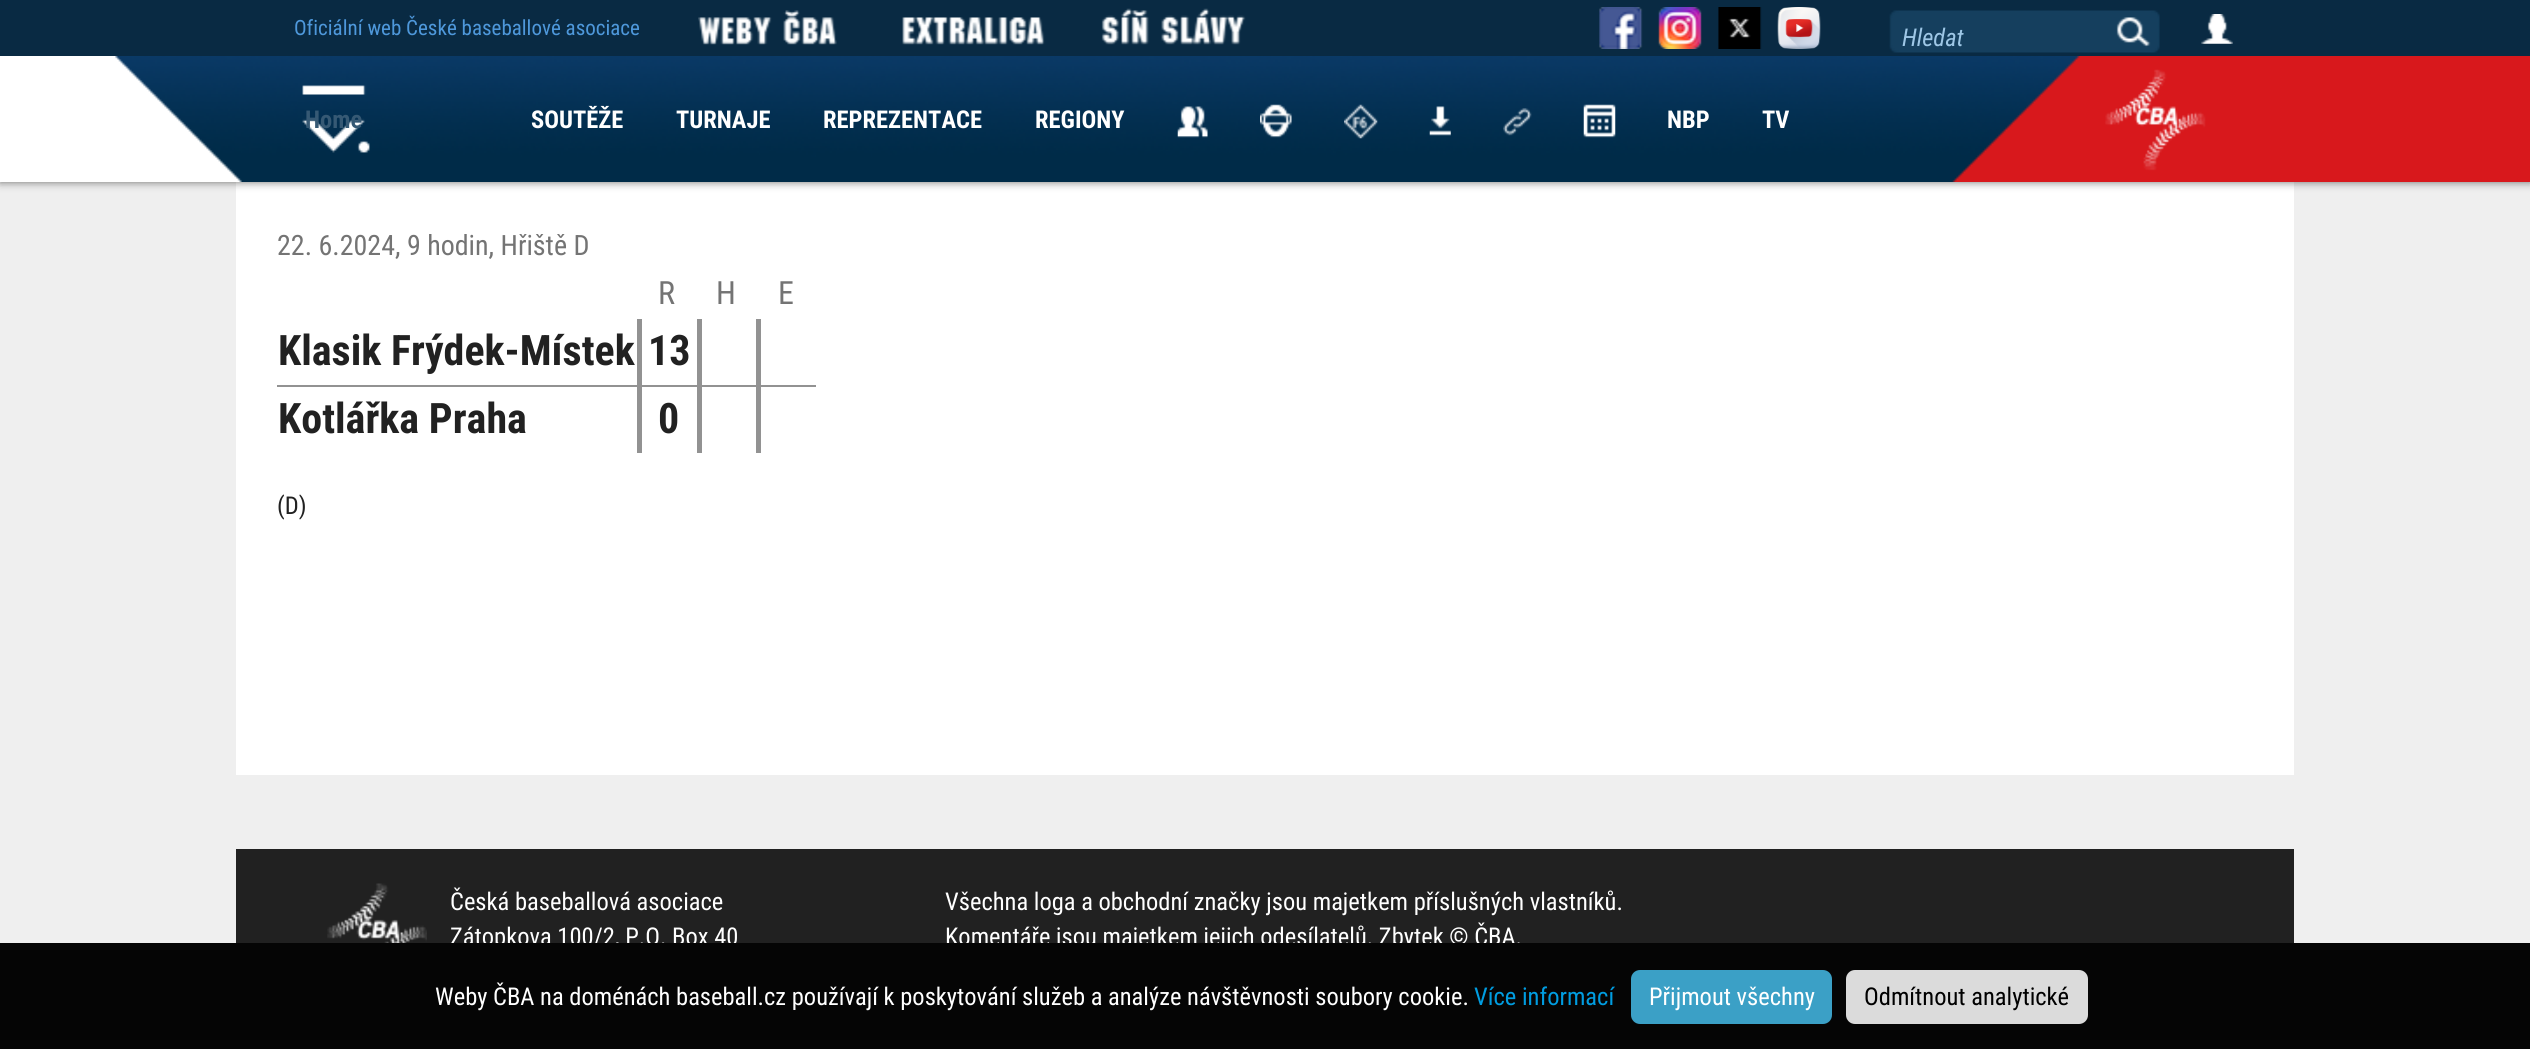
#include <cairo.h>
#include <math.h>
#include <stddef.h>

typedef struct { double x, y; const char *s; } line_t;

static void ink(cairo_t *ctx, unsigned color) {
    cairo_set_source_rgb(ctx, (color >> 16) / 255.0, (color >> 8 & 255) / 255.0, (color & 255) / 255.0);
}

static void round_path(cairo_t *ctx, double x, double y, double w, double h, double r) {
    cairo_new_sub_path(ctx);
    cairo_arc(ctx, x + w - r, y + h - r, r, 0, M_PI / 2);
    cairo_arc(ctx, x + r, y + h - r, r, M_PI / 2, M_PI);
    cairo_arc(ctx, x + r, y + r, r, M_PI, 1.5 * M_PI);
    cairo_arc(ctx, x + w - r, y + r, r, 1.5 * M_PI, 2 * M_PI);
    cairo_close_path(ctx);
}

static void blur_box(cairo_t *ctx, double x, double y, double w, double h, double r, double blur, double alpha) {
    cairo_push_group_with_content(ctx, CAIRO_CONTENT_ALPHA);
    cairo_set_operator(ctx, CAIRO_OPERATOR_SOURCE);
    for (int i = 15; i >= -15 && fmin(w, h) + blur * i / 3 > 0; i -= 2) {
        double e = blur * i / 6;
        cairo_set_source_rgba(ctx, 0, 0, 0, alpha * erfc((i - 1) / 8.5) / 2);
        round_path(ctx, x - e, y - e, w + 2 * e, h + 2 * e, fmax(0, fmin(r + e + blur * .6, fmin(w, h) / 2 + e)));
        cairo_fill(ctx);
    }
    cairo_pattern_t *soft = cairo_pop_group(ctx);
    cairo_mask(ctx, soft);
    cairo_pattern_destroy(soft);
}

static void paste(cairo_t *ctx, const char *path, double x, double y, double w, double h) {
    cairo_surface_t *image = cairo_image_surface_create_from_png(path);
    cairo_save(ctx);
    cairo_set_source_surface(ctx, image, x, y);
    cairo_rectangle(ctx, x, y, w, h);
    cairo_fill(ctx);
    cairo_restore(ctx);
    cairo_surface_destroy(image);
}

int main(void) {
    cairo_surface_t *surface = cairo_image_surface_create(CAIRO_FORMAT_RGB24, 2530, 1049);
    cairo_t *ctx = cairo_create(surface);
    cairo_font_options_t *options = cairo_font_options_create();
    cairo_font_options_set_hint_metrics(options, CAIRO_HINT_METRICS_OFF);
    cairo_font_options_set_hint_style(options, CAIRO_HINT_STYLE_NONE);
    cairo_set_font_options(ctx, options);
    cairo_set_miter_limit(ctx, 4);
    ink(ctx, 0xEFEFEF);
    cairo_paint(ctx);
    ink(ctx, 0xFFFFFF);
    cairo_rectangle(ctx, 236, 182, 2058, 593);
    cairo_fill(ctx);
    ink(ctx, 0x1D1D1B);
    blur_box(ctx, 0, 56, 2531, 126, 0, 4.5, 0.63);
    ink(ctx, 0x092A43);
    cairo_rectangle(ctx, 0, 0, 2530, 56);
    cairo_fill(ctx);
    cairo_select_font_face(ctx, "Roboto Condensed", CAIRO_FONT_SLANT_NORMAL, CAIRO_FONT_WEIGHT_NORMAL);
    cairo_set_font_size(ctx, 21);
    ink(ctx, 0x4E98DB);
    cairo_move_to(ctx, 294, 35);
    cairo_show_text(ctx, "Oficiální web České baseballové asociace");
    paste(ctx, "media/1.png", 698, 10, 139, 35);
    paste(ctx, "media/2.png", 902, 17, 143, 28);
    paste(ctx, "media/3.png", 1101, 8, 145, 37);
    paste(ctx, "media/4.png", 1599, 7, 44, 42);
    paste(ctx, "media/5.png", 1658, 7, 44, 42);
    paste(ctx, "media/6.png", 1718, 7, 44, 42);
    paste(ctx, "media/7.png", 1777, 7, 44, 42);
    paste(ctx, "media/8.png", 1889, 10, 271, 43);
    cairo_select_font_face(ctx, "Roboto Condensed", CAIRO_FONT_SLANT_ITALIC, CAIRO_FONT_WEIGHT_NORMAL);
    cairo_set_font_size(ctx, 24.5);
    ink(ctx, 0x9EC7E6);
    cairo_move_to(ctx, 1902, 46);
    cairo_show_text(ctx, "Hledat");
    paste(ctx, "media/9.png", 2201, 14, 32, 30);
    ink(ctx, 0xFFFFFF);
    cairo_rectangle(ctx, 0, 56, 115, 126);
    cairo_fill(ctx);
    paste(ctx, "media/10.png", 115, 56, 2091, 126);
    ink(ctx, 0xD8181C);
    cairo_rectangle(ctx, 2206, 56, 324, 126);
    cairo_fill(ctx);
    cairo_select_font_face(ctx, "Roboto Condensed", CAIRO_FONT_SLANT_NORMAL, CAIRO_FONT_WEIGHT_BOLD);
    ink(ctx, 0x365974);
    cairo_move_to(ctx, 305, 128);
    cairo_show_text(ctx, "Home");
    ink(ctx, 0xFFFFFF);
    {
        static const line_t items[] = {
            {531, 128, "SOUTĚŽE"},
            {676, 128, "TURNAJE"},
            {823, 128, "REPREZENTACE"},
            {1035, 128, "REGIONY"},
        };
        for (size_t i = 0; i < sizeof items / sizeof *items; i++) {
            cairo_move_to(ctx, items[i].x, items[i].y);
            cairo_show_text(ctx, items[i].s);
        }
    }
    paste(ctx, "media/11.png", 1177, 106, 31, 32);
    paste(ctx, "media/12.png", 1260, 104, 32, 34);
    paste(ctx, "media/13.png", 1344, 104, 34, 35);
    paste(ctx, "media/14.png", 1429, 106, 22, 30);
    paste(ctx, "media/15.png", 1503, 108, 29, 28);
    paste(ctx, "media/16.png", 1583, 104, 33, 34);
    cairo_move_to(ctx, 1667, 128);
    cairo_show_text(ctx, "NBP");
    cairo_move_to(ctx, 1762, 128);
    cairo_show_text(ctx, "TV");
    cairo_select_font_face(ctx, "Roboto Condensed", CAIRO_FONT_SLANT_NORMAL, CAIRO_FONT_WEIGHT_NORMAL);
    cairo_set_font_size(ctx, 28);
    ink(ctx, 0x747474);
    cairo_move_to(ctx, 277, 255);
    cairo_show_text(ctx, "22. 6.2024, 9 hodin, Hřiště D");
    cairo_set_font_size(ctx, 32);
    {
        static const line_t items[] = {
            {658, 304, "R"},
            {716, 304, "H"},
            {778, 304, "E"},
        };
        for (size_t i = 0; i < sizeof items / sizeof *items; i++) {
            cairo_move_to(ctx, items[i].x, items[i].y);
            cairo_show_text(ctx, items[i].s);
        }
    }
    ink(ctx, 0x929292);
    cairo_rectangle(ctx, 277, 385, 539, 2);
    cairo_fill(ctx);
    cairo_select_font_face(ctx, "Roboto Condensed", CAIRO_FONT_SLANT_NORMAL, CAIRO_FONT_WEIGHT_BOLD);
    cairo_set_font_size(ctx, 42);
    ink(ctx, 0x212121);
    cairo_move_to(ctx, 278, 365);
    cairo_show_text(ctx, "Klasik Frýdek-Místek");
    ink(ctx, 0x929292);
    cairo_rectangle(ctx, 637, 319, 5, 134);
    cairo_fill(ctx);
    ink(ctx, 0x212121);
    cairo_move_to(ctx, 648, 365);
    cairo_show_text(ctx, "13");
    ink(ctx, 0x929292);
    cairo_rectangle(ctx, 697, 319, 5, 134);
    cairo_fill(ctx);
    cairo_rectangle(ctx, 756, 319, 5, 134);
    cairo_fill(ctx);
    ink(ctx, 0x212121);
    cairo_move_to(ctx, 278, 433);
    cairo_show_text(ctx, "Kotlářka Praha");
    cairo_move_to(ctx, 658, 433);
    cairo_show_text(ctx, "0");
    cairo_select_font_face(ctx, "Roboto Condensed", CAIRO_FONT_SLANT_NORMAL, CAIRO_FONT_WEIGHT_NORMAL);
    cairo_set_font_size(ctx, 24.5);
    cairo_move_to(ctx, 277, 514);
    cairo_show_text(ctx, "(D)");
    cairo_rectangle(ctx, 236, 849, 2058, 94);
    cairo_fill(ctx);
    paste(ctx, "media/17.png", 327, 883, 100, 60);
    ink(ctx, 0xFFFFFF);
    {
        static const line_t items[] = {
            {450, 910, "Česká baseballová asociace"},
            {450, 945, "Zátopkova 100/2, P.O. Box 40"},
            {945, 910, "Všechna loga a obchodní značky jsou majetkem příslušných vlastníků."},
            {945, 945, "Komentáře jsou majetkem jejich odesílatelů. Zbytek © ČBA."},
        };
        for (size_t i = 0; i < sizeof items / sizeof *items; i++) {
            cairo_move_to(ctx, items[i].x, items[i].y);
            cairo_show_text(ctx, items[i].s);
        }
    }
    ink(ctx, 0x050505);
    cairo_rectangle(ctx, 0, 943, 2530, 106);
    cairo_fill(ctx);
    ink(ctx, 0xFFFFFF);
    cairo_move_to(ctx, 435, 1005);
    cairo_show_text(ctx, "Weby ČBA na doménách baseball.cz používají k poskytování služeb a analýze návštěvnosti soubory cookie.");
    ink(ctx, 0x009DE1);
    cairo_move_to(ctx, 1474, 1005);
    cairo_show_text(ctx, "Více informací");
    ink(ctx, 0x3BA0C6);
    round_path(ctx, 1631, 970, 201, 54, 9);
    cairo_fill(ctx);
    ink(ctx, 0xFFFFFF);
    cairo_move_to(ctx, 1649, 1005);
    cairo_show_text(ctx, "Přijmout všechny");
    ink(ctx, 0xDBDBDB);
    round_path(ctx, 1846, 970, 242, 54, 9);
    cairo_fill(ctx);
    ink(ctx, 0x000000);
    cairo_move_to(ctx, 1864, 1005);
    cairo_show_text(ctx, "Odmítnout analytické");
    cairo_surface_write_to_png(surface, "image.png");
    cairo_font_options_destroy(options);
    cairo_destroy(ctx);
    cairo_surface_destroy(surface);
    return 0;
}
